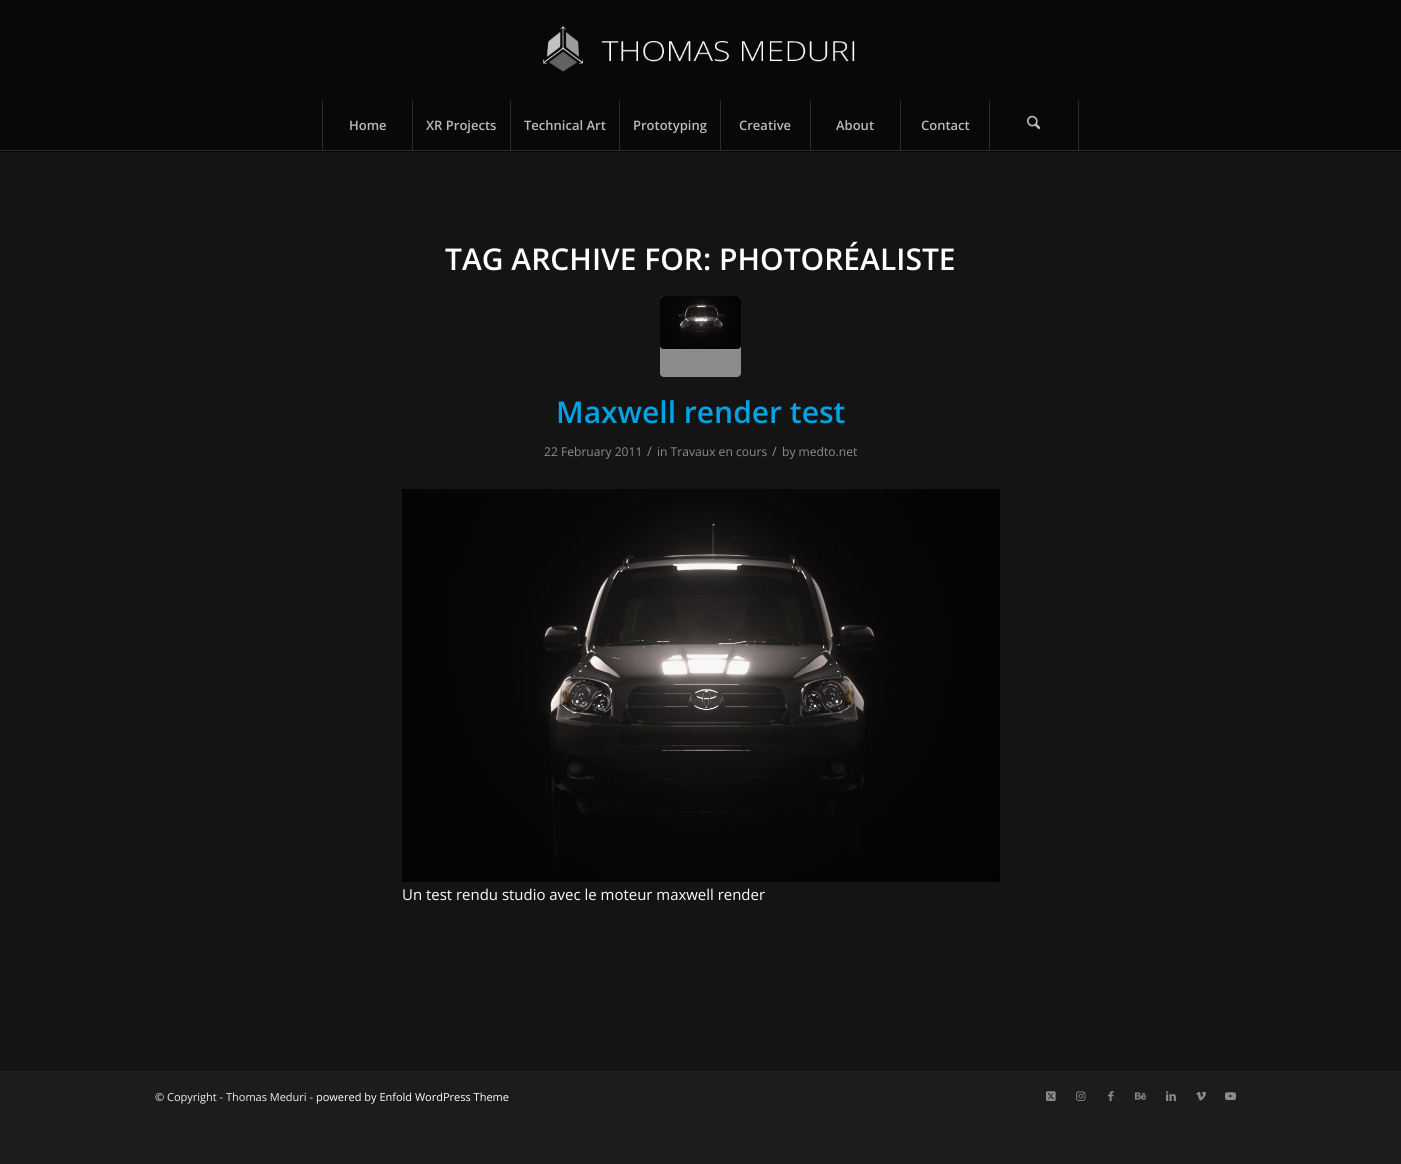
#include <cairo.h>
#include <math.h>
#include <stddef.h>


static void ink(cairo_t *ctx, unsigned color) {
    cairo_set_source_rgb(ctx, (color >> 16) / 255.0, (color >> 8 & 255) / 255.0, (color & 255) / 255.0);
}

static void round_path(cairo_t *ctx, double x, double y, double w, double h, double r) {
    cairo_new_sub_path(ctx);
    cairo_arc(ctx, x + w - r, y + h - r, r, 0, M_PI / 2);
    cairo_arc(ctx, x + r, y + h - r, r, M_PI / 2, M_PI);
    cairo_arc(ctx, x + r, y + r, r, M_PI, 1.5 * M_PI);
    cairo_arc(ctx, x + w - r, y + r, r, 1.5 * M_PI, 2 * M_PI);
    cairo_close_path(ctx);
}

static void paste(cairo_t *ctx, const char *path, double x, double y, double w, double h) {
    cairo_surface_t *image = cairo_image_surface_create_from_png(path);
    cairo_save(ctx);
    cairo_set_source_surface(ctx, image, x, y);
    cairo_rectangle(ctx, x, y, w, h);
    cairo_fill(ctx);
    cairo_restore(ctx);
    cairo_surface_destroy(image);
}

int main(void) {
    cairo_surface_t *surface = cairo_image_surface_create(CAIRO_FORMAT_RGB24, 1401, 1164);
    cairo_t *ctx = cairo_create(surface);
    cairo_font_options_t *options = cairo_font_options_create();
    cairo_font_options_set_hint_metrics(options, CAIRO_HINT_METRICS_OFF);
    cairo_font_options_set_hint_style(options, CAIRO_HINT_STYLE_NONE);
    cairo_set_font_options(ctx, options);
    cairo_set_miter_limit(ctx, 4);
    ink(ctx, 0x1C1C1C);
    cairo_paint(ctx);
    ink(ctx, 0x080808);
    cairo_rectangle(ctx, 0, 0, 1401, 152);
    cairo_fill(ctx);
    ink(ctx, 0x2B2B2B);
    cairo_rectangle(ctx, 0, 150, 1401, 1);
    cairo_fill(ctx);
    paste(ctx, "media/1.png", 542, 26, 313, 46);
    cairo_rectangle(ctx, 322, 100, 1, 50);
    cairo_fill(ctx);
    cairo_select_font_face(ctx, "Open Sans SemiBold", CAIRO_FONT_SLANT_NORMAL, CAIRO_FONT_WEIGHT_NORMAL);
    cairo_set_font_size(ctx, 13);
    ink(ctx, 0xBABABA);
    cairo_move_to(ctx, 349, 130);
    cairo_show_text(ctx, "Home");
    ink(ctx, 0x2B2B2B);
    cairo_rectangle(ctx, 412, 100, 1, 50);
    cairo_fill(ctx);
    ink(ctx, 0xBABABA);
    cairo_move_to(ctx, 426, 130);
    cairo_show_text(ctx, "XR Projects");
    ink(ctx, 0x2B2B2B);
    cairo_rectangle(ctx, 510, 100, 1, 50);
    cairo_fill(ctx);
    ink(ctx, 0xBABABA);
    cairo_move_to(ctx, 524, 130);
    cairo_show_text(ctx, "Technical Art");
    ink(ctx, 0x2B2B2B);
    cairo_rectangle(ctx, 619, 100, 1, 50);
    cairo_fill(ctx);
    ink(ctx, 0xBABABA);
    cairo_move_to(ctx, 633, 130);
    cairo_show_text(ctx, "Prototyping");
    ink(ctx, 0x2B2B2B);
    cairo_rectangle(ctx, 720, 100, 1, 50);
    cairo_fill(ctx);
    ink(ctx, 0xBABABA);
    cairo_move_to(ctx, 739, 130);
    cairo_show_text(ctx, "Creative");
    ink(ctx, 0x2B2B2B);
    cairo_rectangle(ctx, 810, 100, 1, 50);
    cairo_fill(ctx);
    ink(ctx, 0xBABABA);
    cairo_move_to(ctx, 836, 130);
    cairo_show_text(ctx, "About");
    ink(ctx, 0x2B2B2B);
    cairo_rectangle(ctx, 900, 100, 1, 50);
    cairo_fill(ctx);
    ink(ctx, 0xBABABA);
    cairo_move_to(ctx, 921, 130);
    cairo_show_text(ctx, "Contact");
    ink(ctx, 0x2B2B2B);
    cairo_rectangle(ctx, 1078, 100, 1, 50);
    cairo_fill(ctx);
    cairo_rectangle(ctx, 989, 100, 1, 50);
    cairo_fill(ctx);
    paste(ctx, "media/2.png", 1027, 115, 13, 15);
    ink(ctx, 0x141414);
    cairo_rectangle(ctx, 0, 152, 1401, 919);
    cairo_fill(ctx);
    cairo_set_font_size(ctx, 30);
    ink(ctx, 0xFFFFFF);
    cairo_move_to(ctx, 445, 270);
    cairo_show_text(ctx, "TAG ARCHIVE FOR: PHOTORÉALISTE");
    ink(ctx, 0x8C8C8C);
    round_path(ctx, 660, 296, 81, 81, 4);
    cairo_fill(ctx);
    paste(ctx, "media/3.png", 660, 296, 81, 53);
    ink(ctx, 0x00A3E3);
    cairo_move_to(ctx, 556, 423);
    cairo_show_text(ctx, "Maxwell render test");
    cairo_select_font_face(ctx, "Open Sans", CAIRO_FONT_SLANT_NORMAL, CAIRO_FONT_WEIGHT_NORMAL);
    cairo_set_font_size(ctx, 12.1);
    ink(ctx, 0x8C8C8C);
    cairo_move_to(ctx, 544, 456);
    cairo_show_text(ctx, "22 February 2011");
    cairo_set_font_size(ctx, 13);
    cairo_move_to(ctx, 647, 456);
    cairo_show_text(ctx, "/");
    cairo_set_font_size(ctx, 12.1);
    cairo_move_to(ctx, 657, 456);
    cairo_show_text(ctx, "in Travaux en cours");
    cairo_set_font_size(ctx, 13);
    cairo_move_to(ctx, 772, 456);
    cairo_show_text(ctx, "/");
    cairo_set_font_size(ctx, 12.1);
    cairo_move_to(ctx, 782, 456);
    cairo_show_text(ctx, "by medto.net");
    paste(ctx, "media/4.png", 402, 489, 598, 393);
    cairo_set_font_size(ctx, 14.95);
    ink(ctx, 0xFFFFFF);
    cairo_move_to(ctx, 402, 900);
    cairo_show_text(ctx, "Un test rendu studio avec le moteur maxwell render");
    cairo_set_font_size(ctx, 11);
    ink(ctx, 0xEEEEEE);
    cairo_move_to(ctx, 155, 1101);
    cairo_show_text(ctx, "© Copyright - Thomas Meduri -");
    ink(ctx, 0xFFFFFF);
    cairo_move_to(ctx, 316, 1101);
    cairo_show_text(ctx, "powered by Enfold WordPress Theme");
    paste(ctx, "media/5.png", 1046, 1091, 10, 10);
    paste(ctx, "media/6.png", 1076, 1091, 10, 10);
    paste(ctx, "media/7.png", 1108, 1091, 6, 11);
    paste(ctx, "media/8.png", 1135, 1092, 11, 8);
    paste(ctx, "media/9.png", 1166, 1091, 10, 10);
    paste(ctx, "media/10.png", 1196, 1091, 10, 10);
    paste(ctx, "media/11.png", 1225, 1092, 11, 8);
    cairo_surface_write_to_png(surface, "image.png");
    cairo_font_options_destroy(options);
    cairo_destroy(ctx);
    cairo_surface_destroy(surface);
    return 0;
}
